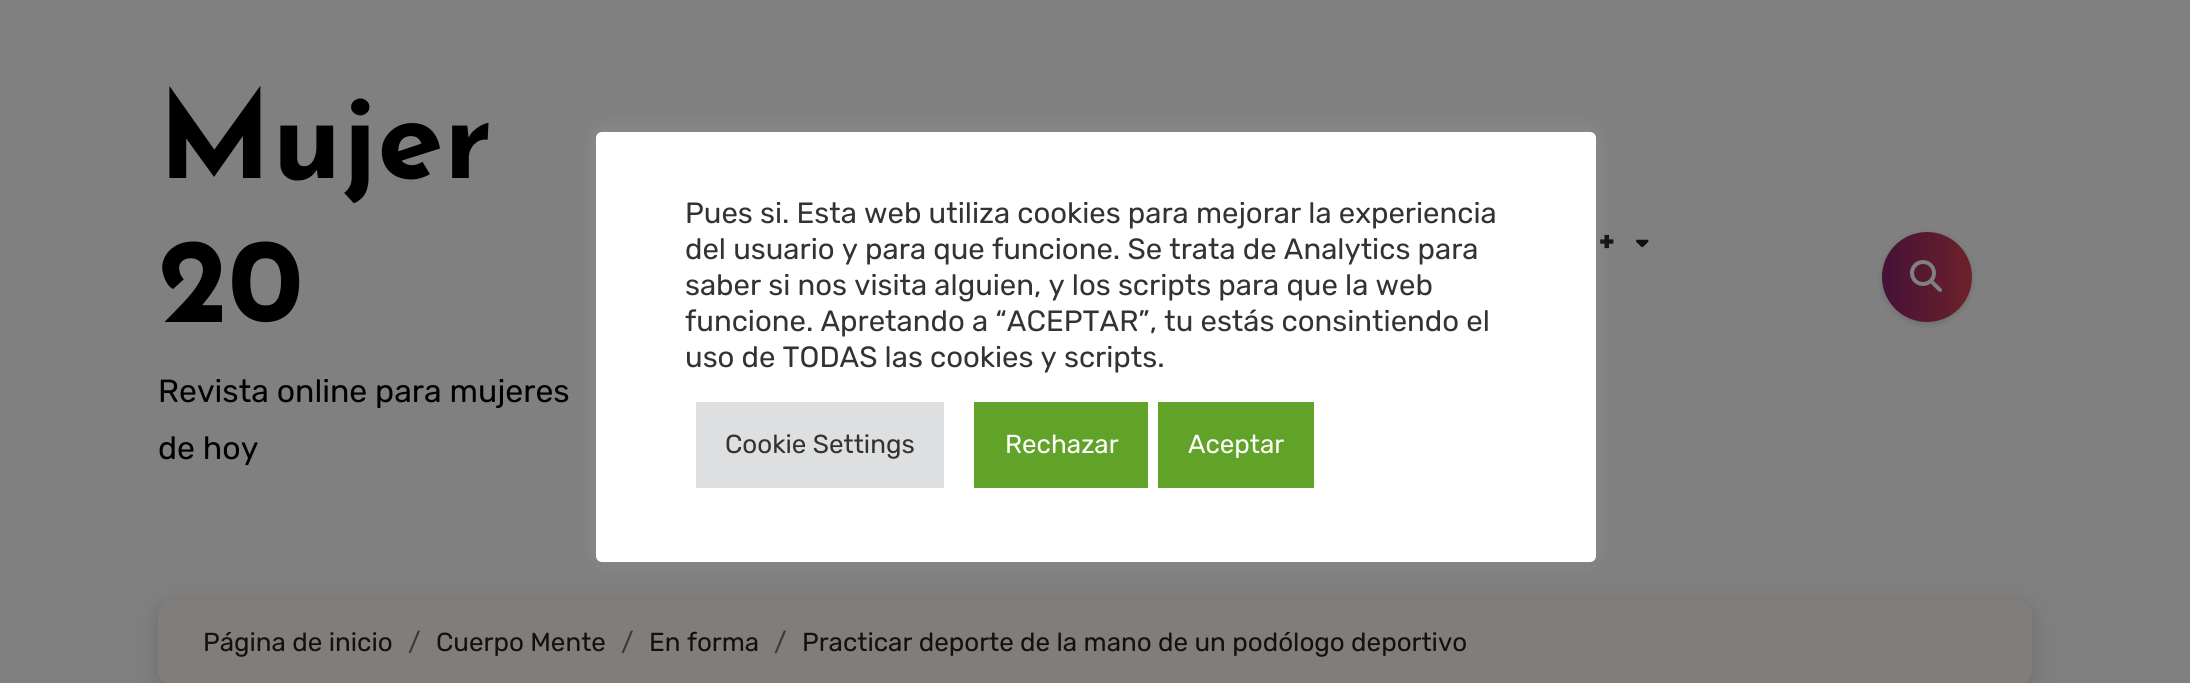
#include <cairo.h>
#include <math.h>
#include <stddef.h>

typedef struct { double x, y; const char *s; } line_t;

static void ink(cairo_t *ctx, unsigned color) {
    cairo_set_source_rgb(ctx, (color >> 16) / 255.0, (color >> 8 & 255) / 255.0, (color & 255) / 255.0);
}

static void write_spaced(cairo_t *ctx, double x, double y, const char *s, double letter, double word) {
    cairo_move_to(ctx, x, y);
    while (*s) {
        char ch[5] = {0};
        int n = 0;
        do ch[n++] = *s++; while ((*s & 0xC0) == 0x80);
        cairo_show_text(ctx, ch);
        cairo_rel_move_to(ctx, letter + word * (*ch == ' '), 0);
    }
}

static void round_path(cairo_t *ctx, double x, double y, double w, double h, double r) {
    cairo_new_sub_path(ctx);
    cairo_arc(ctx, x + w - r, y + h - r, r, 0, M_PI / 2);
    cairo_arc(ctx, x + r, y + h - r, r, M_PI / 2, M_PI);
    cairo_arc(ctx, x + r, y + r, r, M_PI, 1.5 * M_PI);
    cairo_arc(ctx, x + w - r, y + r, r, 1.5 * M_PI, 2 * M_PI);
    cairo_close_path(ctx);
}

static void blur_box(cairo_t *ctx, double x, double y, double w, double h, double r, double blur, double alpha) {
    cairo_push_group_with_content(ctx, CAIRO_CONTENT_ALPHA);
    cairo_set_operator(ctx, CAIRO_OPERATOR_SOURCE);
    for (int i = 15; i >= -15 && fmin(w, h) + blur * i / 3 > 0; i -= 2) {
        double e = blur * i / 6;
        cairo_set_source_rgba(ctx, 0, 0, 0, alpha * erfc((i - 1) / 8.5) / 2);
        round_path(ctx, x - e, y - e, w + 2 * e, h + 2 * e, fmax(0, fmin(r + e + blur * .6, fmin(w, h) / 2 + e)));
        cairo_fill(ctx);
    }
    cairo_pattern_t *soft = cairo_pop_group(ctx);
    cairo_mask(ctx, soft);
    cairo_pattern_destroy(soft);
}

static void paste(cairo_t *ctx, const char *path, double x, double y, double w, double h) {
    cairo_surface_t *image = cairo_image_surface_create_from_png(path);
    cairo_save(ctx);
    cairo_set_source_surface(ctx, image, x, y);
    cairo_rectangle(ctx, x, y, w, h);
    cairo_fill(ctx);
    cairo_restore(ctx);
    cairo_surface_destroy(image);
}

int main(void) {
    cairo_surface_t *surface = cairo_image_surface_create(CAIRO_FORMAT_RGB24, 2190, 683);
    cairo_t *ctx = cairo_create(surface);
    cairo_font_options_t *options = cairo_font_options_create();
    cairo_font_options_set_hint_metrics(options, CAIRO_HINT_METRICS_OFF);
    cairo_font_options_set_hint_style(options, CAIRO_HINT_STYLE_NONE);
    cairo_set_font_options(ctx, options);
    cairo_set_miter_limit(ctx, 4);
    cairo_pattern_t *gradient;
    ink(ctx, 0x808080);
    cairo_paint(ctx);
    cairo_select_font_face(ctx, "Josefin Sans", CAIRO_FONT_SLANT_NORMAL, CAIRO_FONT_WEIGHT_BOLD);
    cairo_set_font_size(ctx, 120);
    ink(ctx, 0x000000);
    cairo_move_to(ctx, 158, 178);
    cairo_show_text(ctx, "Mujer");
    cairo_move_to(ctx, 158, 322);
    cairo_show_text(ctx, "20");
    cairo_select_font_face(ctx, "Rubik Light", CAIRO_FONT_SLANT_NORMAL, CAIRO_FONT_WEIGHT_NORMAL);
    cairo_set_font_size(ctx, 32);
    cairo_move_to(ctx, 158, 402);
    cairo_show_text(ctx, "Revista online para mujeres");
    cairo_move_to(ctx, 158, 459);
    cairo_show_text(ctx, "de hoy");
    cairo_select_font_face(ctx, "Josefin Sans", CAIRO_FONT_SLANT_NORMAL, CAIRO_FONT_WEIGHT_BOLD);
    cairo_set_font_size(ctx, 36);
    ink(ctx, 0x111111);
    write_spaced(ctx, 1597, 250, "+", 1, 0);
    paste(ctx, "media/1.png", 1636, 239, 13, 9);
    ink(ctx, 0x000000);
    blur_box(ctx, 1882, 234, 90, 90, 45, 3, 0.15);
    gradient = cairo_pattern_create_linear(1882, 277, 1972, 277);
    cairo_pattern_add_color_stop_rgba(gradient, 0, 0.271, 0.067, 0.212, 1);
    cairo_pattern_add_color_stop_rgba(gradient, 1, 0.427, 0.133, 0.165, 1);
    cairo_set_source(ctx, gradient);
    cairo_pattern_destroy(gradient);
    cairo_arc(ctx, 1927, 277, 45, 0, 2 * M_PI);
    cairo_fill(ctx);
    paste(ctx, "media/2.png", 1910, 260, 32, 32);
    ink(ctx, 0x04050D);
    blur_box(ctx, 160, 608, 1870, 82, 14, 12, 0.2);
    ink(ctx, 0x807D7A);
    round_path(ctx, 158, 600, 1874, 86, 16);
    cairo_fill(ctx);
    cairo_select_font_face(ctx, "Rubik Light", CAIRO_FONT_SLANT_NORMAL, CAIRO_FONT_WEIGHT_NORMAL);
    cairo_set_font_size(ctx, 26);
    ink(ctx, 0x111111);
    cairo_move_to(ctx, 203, 651);
    cairo_show_text(ctx, "Página de inicio");
    ink(ctx, 0x363B3F);
    cairo_move_to(ctx, 408, 651);
    cairo_show_text(ctx, "/");
    ink(ctx, 0x111111);
    cairo_move_to(ctx, 436, 651);
    cairo_show_text(ctx, "Cuerpo Mente");
    ink(ctx, 0x363B3F);
    cairo_move_to(ctx, 621, 651);
    cairo_show_text(ctx, "/");
    ink(ctx, 0x111111);
    cairo_move_to(ctx, 649, 651);
    cairo_show_text(ctx, "En forma");
    ink(ctx, 0x363B3F);
    cairo_move_to(ctx, 774, 651);
    cairo_show_text(ctx, "/");
    ink(ctx, 0x111111);
    cairo_move_to(ctx, 802, 651);
    cairo_show_text(ctx, "Practicar deporte de la mano de un podólogo deportivo");
    ink(ctx, 0xACABAB);
    blur_box(ctx, 596, 130, 1000, 430, 6, 10, 0.3);
    ink(ctx, 0xFFFFFF);
    round_path(ctx, 596, 132, 1000, 430, 6);
    cairo_fill(ctx);
    cairo_set_font_size(ctx, 29.3);
    ink(ctx, 0x333333);
    {
        static const line_t items[] = {
            {685, 223, "Pues si. Esta web utiliza cookies para mejorar la experiencia"},
            {685, 259, "del usuario y para que funcione. Se trata de Analytics para"},
            {685, 295, "saber si nos visita alguien, y los scripts para que la web"},
            {685, 331, "funcione. Apretando a “ACEPTAR”, tu estás consintiendo el"},
            {685, 367, "uso de TODAS las cookies y scripts."},
        };
        for (size_t i = 0; i < sizeof items / sizeof *items; i++) {
            cairo_move_to(ctx, items[i].x, items[i].y);
            cairo_show_text(ctx, items[i].s);
        }
    }
    ink(ctx, 0xDEDFE0);
    cairo_rectangle(ctx, 696, 402, 248, 86);
    cairo_fill(ctx);
    cairo_set_font_size(ctx, 26);
    ink(ctx, 0x333333);
    cairo_move_to(ctx, 725, 453);
    cairo_show_text(ctx, "Cookie Settings");
    ink(ctx, 0x61A229);
    cairo_rectangle(ctx, 974, 402, 174, 86);
    cairo_fill(ctx);
    ink(ctx, 0xFFFFFF);
    cairo_move_to(ctx, 1005, 453);
    cairo_show_text(ctx, "Rechazar");
    ink(ctx, 0x61A229);
    cairo_rectangle(ctx, 1158, 402, 156, 86);
    cairo_fill(ctx);
    ink(ctx, 0xFFFFFF);
    cairo_move_to(ctx, 1188, 453);
    cairo_show_text(ctx, "Aceptar");
    cairo_surface_write_to_png(surface, "image.png");
    cairo_font_options_destroy(options);
    cairo_destroy(ctx);
    cairo_surface_destroy(surface);
    return 0;
}
